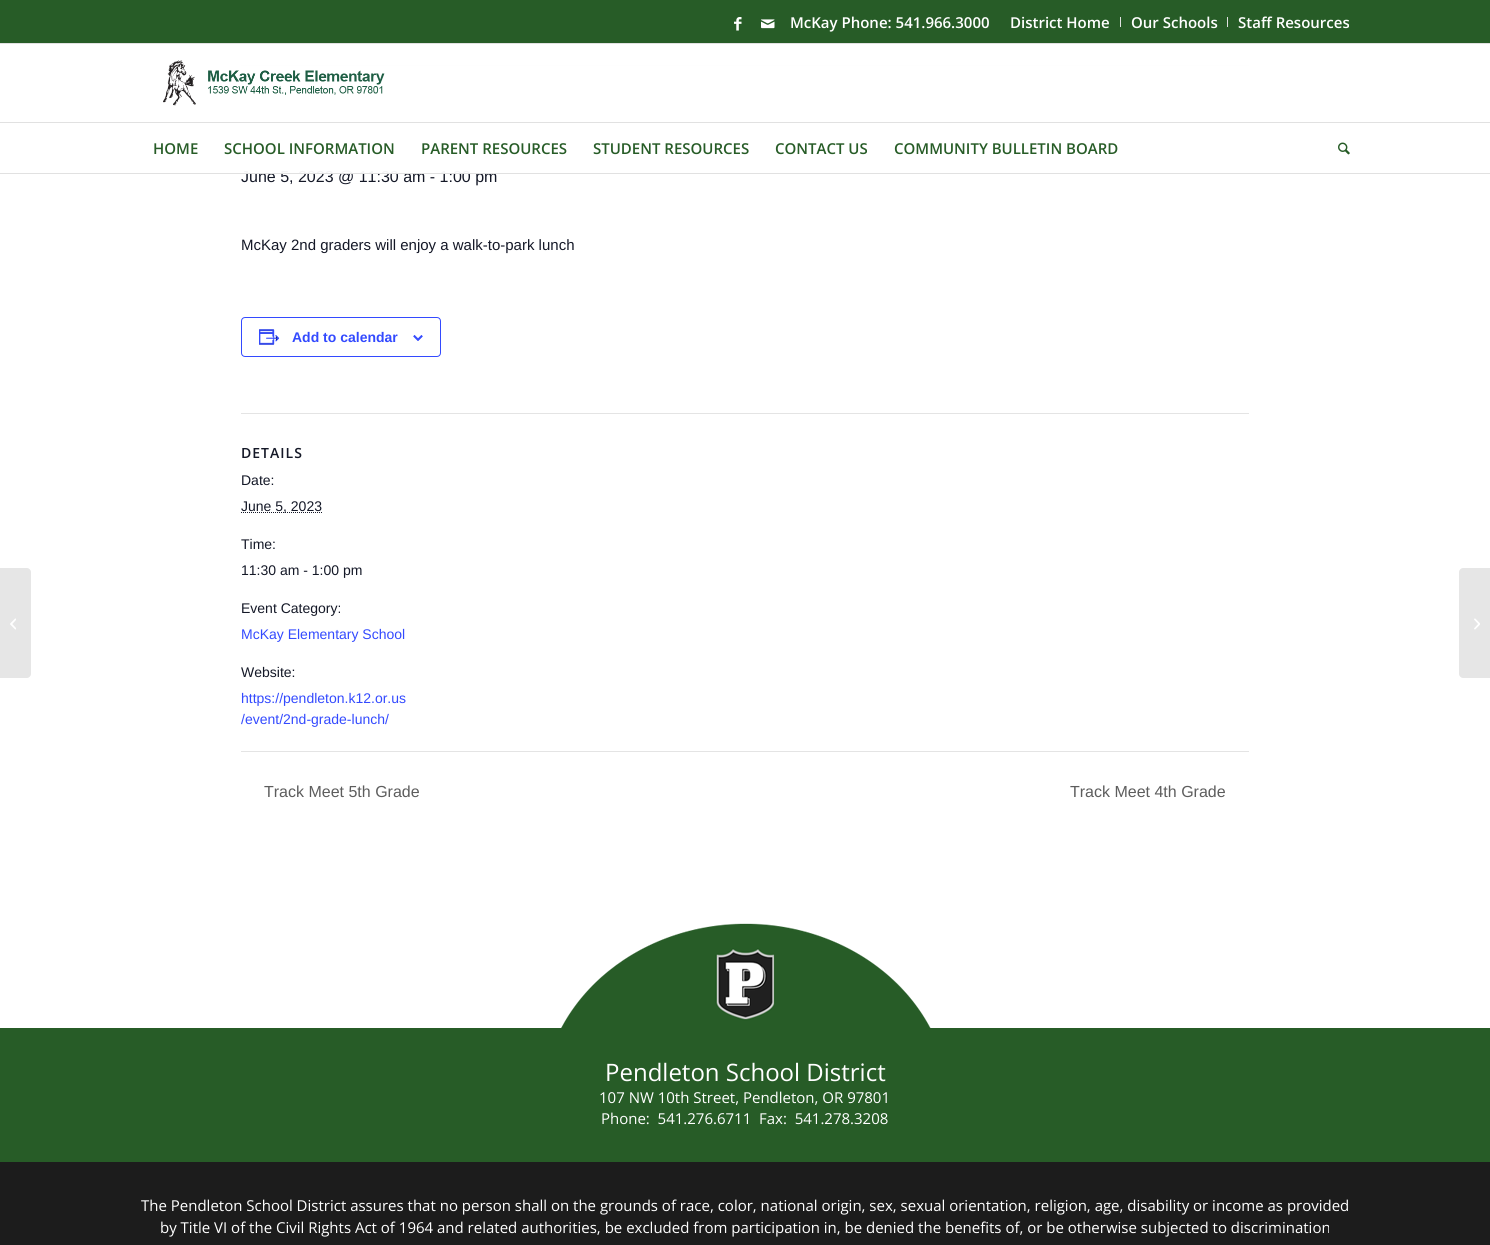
#include <cairo.h>
#include <math.h>
#include <stddef.h>

typedef struct { double x, y; const char *s; } line_t;

static void ink(cairo_t *ctx, unsigned color) {
    cairo_set_source_rgb(ctx, (color >> 16) / 255.0, (color >> 8 & 255) / 255.0, (color & 255) / 255.0);
}

static void write_spaced(cairo_t *ctx, double x, double y, const char *s, double letter, double word) {
    cairo_move_to(ctx, x, y);
    while (*s) {
        char ch[5] = {0};
        int n = 0;
        do ch[n++] = *s++; while ((*s & 0xC0) == 0x80);
        cairo_show_text(ctx, ch);
        cairo_rel_move_to(ctx, letter + word * (*ch == ' '), 0);
    }
}

static void round_path(cairo_t *ctx, double x, double y, double w, double h, double r) {
    cairo_new_sub_path(ctx);
    cairo_arc(ctx, x + w - r, y + h - r, r, 0, M_PI / 2);
    cairo_arc(ctx, x + r, y + h - r, r, M_PI / 2, M_PI);
    cairo_arc(ctx, x + r, y + r, r, M_PI, 1.5 * M_PI);
    cairo_arc(ctx, x + w - r, y + r, r, 1.5 * M_PI, 2 * M_PI);
    cairo_close_path(ctx);
}

static void paste(cairo_t *ctx, const char *path, double x, double y, double w, double h) {
    cairo_surface_t *image = cairo_image_surface_create_from_png(path);
    cairo_save(ctx);
    cairo_set_source_surface(ctx, image, x, y);
    cairo_rectangle(ctx, x, y, w, h);
    cairo_fill(ctx);
    cairo_restore(ctx);
    cairo_surface_destroy(image);
}

int main(void) {
    cairo_surface_t *surface = cairo_image_surface_create(CAIRO_FORMAT_RGB24, 1490, 1245);
    cairo_t *ctx = cairo_create(surface);
    cairo_font_options_t *options = cairo_font_options_create();
    cairo_font_options_set_hint_metrics(options, CAIRO_HINT_METRICS_OFF);
    cairo_font_options_set_hint_style(options, CAIRO_HINT_STYLE_NONE);
    cairo_set_font_options(ctx, options);
    cairo_set_miter_limit(ctx, 4);
    ink(ctx, 0xFFFFFF);
    cairo_paint(ctx);
    ink(ctx, 0x275C27);
    cairo_rectangle(ctx, 0, 0, 1490, 43);
    cairo_fill(ctx);
    ink(ctx, 0xE1E1E1);
    cairo_rectangle(ctx, 0, 43, 1490, 1);
    cairo_fill(ctx);
    paste(ctx, "media/1.png", 734, 17, 8, 14);
    paste(ctx, "media/2.png", 761, 19, 14, 10);
    cairo_select_font_face(ctx, "Open Sans SemiBold", CAIRO_FONT_SLANT_NORMAL, CAIRO_FONT_WEIGHT_NORMAL);
    cairo_set_font_size(ctx, 15);
    ink(ctx, 0xFFFFFF);
    cairo_move_to(ctx, 790, 28);
    cairo_show_text(ctx, "McKay Phone: 541.966.3000");
    ink(ctx, 0xE1E1E1);
    cairo_rectangle(ctx, 1120, 17, 1, 10);
    cairo_fill(ctx);
    ink(ctx, 0xFFFFFF);
    cairo_move_to(ctx, 1010, 28);
    cairo_show_text(ctx, "District Home");
    ink(ctx, 0xE1E1E1);
    cairo_rectangle(ctx, 1227, 17, 1, 10);
    cairo_fill(ctx);
    ink(ctx, 0xFFFFFF);
    cairo_move_to(ctx, 1131, 28);
    cairo_show_text(ctx, "Our Schools");
    cairo_move_to(ctx, 1238, 28);
    cairo_show_text(ctx, "Staff Resources");
    ink(ctx, 0xE4E4E4);
    cairo_rectangle(ctx, 241, 65, 1008, 1);
    cairo_fill(ctx);
    cairo_select_font_face(ctx, "Liberation Sans", CAIRO_FONT_SLANT_NORMAL, CAIRO_FONT_WEIGHT_NORMAL);
    cairo_set_font_size(ctx, 16);
    ink(ctx, 0x141827);
    cairo_move_to(ctx, 241, 182);
    cairo_show_text(ctx, "June 5, 2023 @ 11:30 am - 1:00 pm");
    cairo_set_source_rgba(ctx, 1, 1, 1, 0.95);
    cairo_rectangle(ctx, 241, 65, 1008, 108);
    cairo_fill(ctx);
    ink(ctx, 0xE1E1E1);
    cairo_rectangle(ctx, 0, 173, 1490, 1);
    cairo_fill(ctx);
    paste(ctx, "media/3.png", 163, 60, 222, 46);
    cairo_rectangle(ctx, 0, 122, 1490, 1);
    cairo_fill(ctx);
    cairo_select_font_face(ctx, "Open Sans SemiBold", CAIRO_FONT_SLANT_NORMAL, CAIRO_FONT_WEIGHT_NORMAL);
    cairo_set_font_size(ctx, 15);
    ink(ctx, 0x275C27);
    {
        static const line_t items[] = {
            {153, 154, "HOME"},
            {224, 154, "SCHOOL INFORMATION"},
            {421, 154, "PARENT RESOURCES"},
            {593, 154, "STUDENT RESOURCES"},
            {775, 154, "CONTACT US"},
            {894, 154, "COMMUNITY BULLETIN BOARD"},
        };
        for (size_t i = 0; i < sizeof items / sizeof *items; i++) {
            cairo_move_to(ctx, items[i].x, items[i].y);
            cairo_show_text(ctx, items[i].s);
        }
    }
    paste(ctx, "media/4.png", 1338, 142, 12, 13);
    ink(ctx, 0xE6E6E6);
    cairo_new_path(ctx);
    cairo_move_to(ctx, 0, 568);
    cairo_line_to(ctx, 27, 568);
    cairo_curve_to(ctx, 29, 568, 31, 570, 31, 572);
    cairo_line_to(ctx, 31, 674);
    cairo_curve_to(ctx, 31, 676, 29, 678, 27, 678);
    cairo_line_to(ctx, 0, 678);
    cairo_close_path(ctx);
    cairo_fill(ctx);
    paste(ctx, "media/5.png", 10, 618, 6, 12);
    cairo_select_font_face(ctx, "Liberation Sans", CAIRO_FONT_SLANT_NORMAL, CAIRO_FONT_WEIGHT_NORMAL);
    ink(ctx, 0x141827);
    cairo_move_to(ctx, 241, 250);
    cairo_show_text(ctx, "McKay 2nd graders will enjoy a walk-to-park lunch");
    round_path(ctx, 241.5, 317.5, 199, 39, 3.5);
    ink(ctx, 0x334AFF);
    cairo_set_line_width(ctx, 1);
    cairo_stroke(ctx);
    paste(ctx, "media/6.png", 259, 329, 21, 16);
    cairo_select_font_face(ctx, "Liberation Sans", CAIRO_FONT_SLANT_NORMAL, CAIRO_FONT_WEIGHT_BOLD);
    cairo_set_font_size(ctx, 14);
    cairo_move_to(ctx, 292, 342);
    cairo_show_text(ctx, "Add to calendar");
    paste(ctx, "media/7.png", 413, 335, 10, 6);
    ink(ctx, 0xE4E4E4);
    cairo_rectangle(ctx, 241, 413, 1008, 1);
    cairo_fill(ctx);
    cairo_select_font_face(ctx, "Open Sans SemiBold", CAIRO_FONT_SLANT_NORMAL, CAIRO_FONT_WEIGHT_NORMAL);
    ink(ctx, 0x141827);
    write_spaced(ctx, 241, 458, "DETAILS", 1, 0);
    cairo_select_font_face(ctx, "Liberation Sans", CAIRO_FONT_SLANT_NORMAL, CAIRO_FONT_WEIGHT_NORMAL);
    cairo_move_to(ctx, 241, 485);
    cairo_show_text(ctx, "Date:");
    cairo_new_path(ctx);
    cairo_move_to(ctx, 241, 512.5);
    cairo_line_to(ctx, 322, 512.5);
    cairo_set_dash(ctx, (double[]){1, 1}, 2, 0);
    cairo_stroke(ctx);
    {
        static const line_t items[] = {
            {241, 511, "June 5, 2023"},
            {241, 549, "Time:"},
            {241, 575, "11:30 am - 1:00 pm"},
            {241, 613, "Event Category:"},
        };
        for (size_t i = 0; i < sizeof items / sizeof *items; i++) {
            cairo_move_to(ctx, items[i].x, items[i].y);
            cairo_show_text(ctx, items[i].s);
        }
    }
    ink(ctx, 0x334AFF);
    cairo_move_to(ctx, 241, 639);
    cairo_show_text(ctx, "McKay Elementary School");
    ink(ctx, 0x141827);
    cairo_move_to(ctx, 241, 677);
    cairo_show_text(ctx, "Website:");
    ink(ctx, 0x334AFF);
    cairo_move_to(ctx, 241, 703);
    cairo_show_text(ctx, "https://pendleton.k12.or.us");
    cairo_move_to(ctx, 241, 724);
    cairo_show_text(ctx, "/event/2nd-grade-lunch/");
    ink(ctx, 0xE4E4E4);
    cairo_rectangle(ctx, 241, 751, 1008, 1);
    cairo_fill(ctx);
    cairo_set_font_size(ctx, 16);
    ink(ctx, 0x5D5D5D);
    cairo_move_to(ctx, 264, 797);
    cairo_show_text(ctx, "Track Meet 5th Grade");
    cairo_move_to(ctx, 1070, 797);
    cairo_show_text(ctx, "Track Meet 4th Grade");
    paste(ctx, "media/8.png", 561, 923, 370, 105);
    ink(ctx, 0x275C27);
    cairo_rectangle(ctx, 0, 1028, 1490, 134);
    cairo_fill(ctx);
    cairo_select_font_face(ctx, "Open Sans", CAIRO_FONT_SLANT_NORMAL, CAIRO_FONT_WEIGHT_NORMAL);
    cairo_set_font_size(ctx, 24);
    ink(ctx, 0xFFFFFF);
    cairo_move_to(ctx, 605, 1081);
    cairo_show_text(ctx, "Pendleton School District");
    cairo_set_font_size(ctx, 15);
    cairo_move_to(ctx, 599, 1103);
    cairo_show_text(ctx, "107 NW 10th Street, Pendleton, OR 97801");
    cairo_move_to(ctx, 601, 1124);
    cairo_show_text(ctx, "Phone:  541.276.6711  Fax:  541.278.3208");
    ink(ctx, 0x1C1C1C);
    cairo_rectangle(ctx, 0, 1162, 1490, 83);
    cairo_fill(ctx);
    ink(ctx, 0xFFFFFF);
    cairo_move_to(ctx, 141, 1211);
    cairo_show_text(ctx, "The Pendleton School District assures that no person shall on the grounds of race, color, national origin, sex, sexual orientation, religion, age, disability or income as provided");
    cairo_move_to(ctx, 160, 1233);
    cairo_show_text(ctx, "by Title VI of the Civil Rights Act of 1964 and related authorities, be excluded from participation in, be denied the benefits of, or be otherwise subjected to discrimination");
    ink(ctx, 0xE6E6E6);
    cairo_new_path(ctx);
    cairo_move_to(ctx, 1463, 568);
    cairo_line_to(ctx, 1490, 568);
    cairo_line_to(ctx, 1490, 678);
    cairo_line_to(ctx, 1463, 678);
    cairo_curve_to(ctx, 1461, 678, 1459, 676, 1459, 674);
    cairo_line_to(ctx, 1459, 572);
    cairo_curve_to(ctx, 1459, 570, 1461, 568, 1463, 568);
    cairo_close_path(ctx);
    cairo_fill(ctx);
    paste(ctx, "media/9.png", 1474, 618, 6, 12);
    cairo_surface_write_to_png(surface, "image.png");
    cairo_font_options_destroy(options);
    cairo_destroy(ctx);
    cairo_surface_destroy(surface);
    return 0;
}
